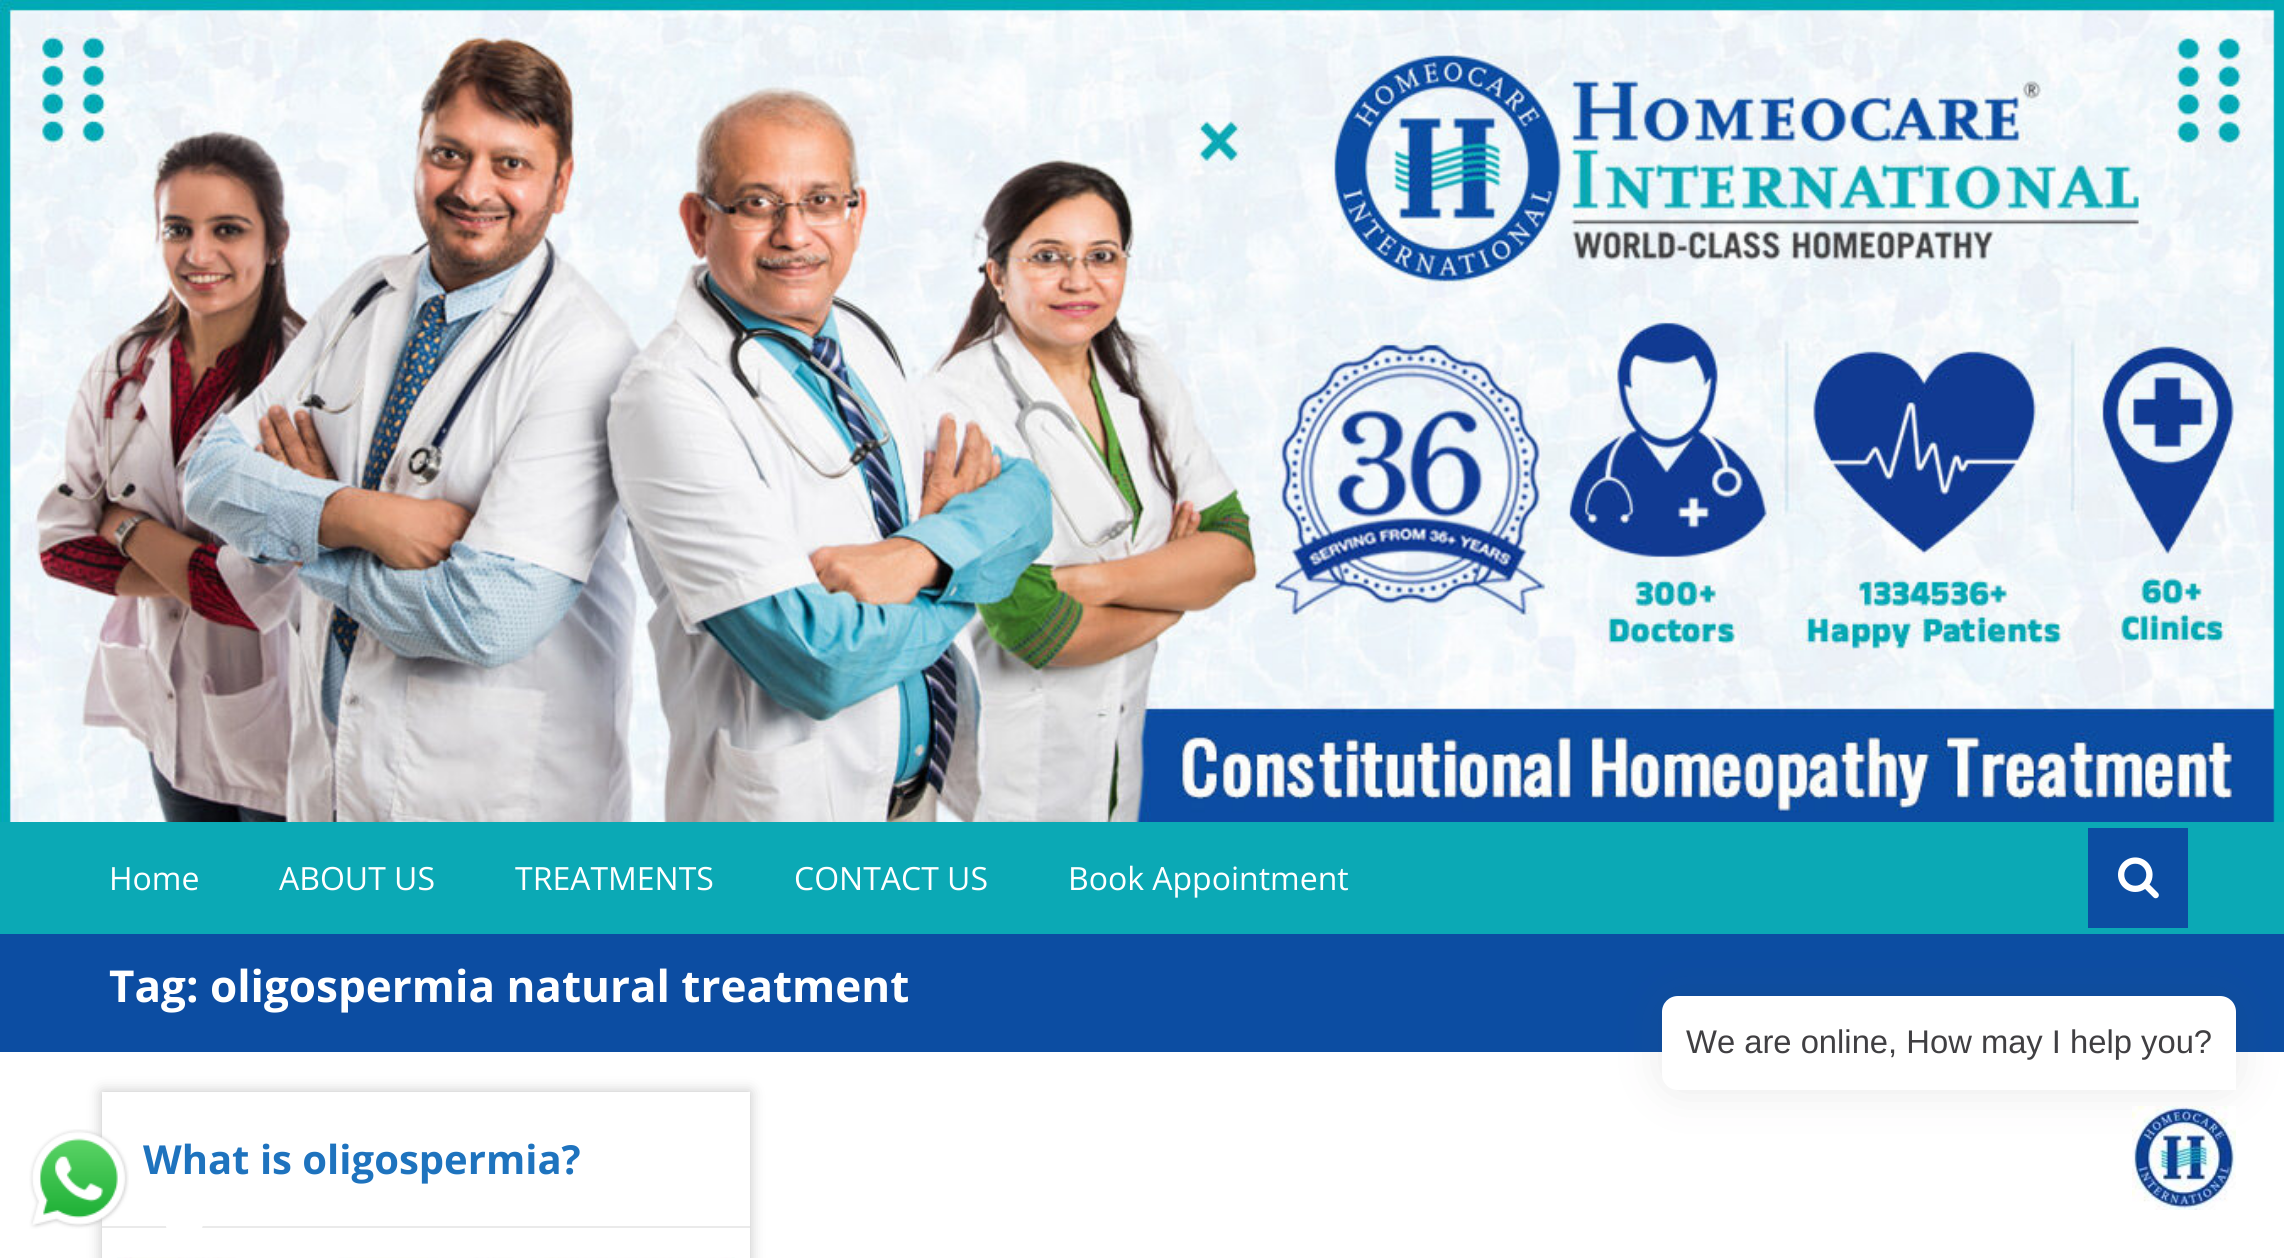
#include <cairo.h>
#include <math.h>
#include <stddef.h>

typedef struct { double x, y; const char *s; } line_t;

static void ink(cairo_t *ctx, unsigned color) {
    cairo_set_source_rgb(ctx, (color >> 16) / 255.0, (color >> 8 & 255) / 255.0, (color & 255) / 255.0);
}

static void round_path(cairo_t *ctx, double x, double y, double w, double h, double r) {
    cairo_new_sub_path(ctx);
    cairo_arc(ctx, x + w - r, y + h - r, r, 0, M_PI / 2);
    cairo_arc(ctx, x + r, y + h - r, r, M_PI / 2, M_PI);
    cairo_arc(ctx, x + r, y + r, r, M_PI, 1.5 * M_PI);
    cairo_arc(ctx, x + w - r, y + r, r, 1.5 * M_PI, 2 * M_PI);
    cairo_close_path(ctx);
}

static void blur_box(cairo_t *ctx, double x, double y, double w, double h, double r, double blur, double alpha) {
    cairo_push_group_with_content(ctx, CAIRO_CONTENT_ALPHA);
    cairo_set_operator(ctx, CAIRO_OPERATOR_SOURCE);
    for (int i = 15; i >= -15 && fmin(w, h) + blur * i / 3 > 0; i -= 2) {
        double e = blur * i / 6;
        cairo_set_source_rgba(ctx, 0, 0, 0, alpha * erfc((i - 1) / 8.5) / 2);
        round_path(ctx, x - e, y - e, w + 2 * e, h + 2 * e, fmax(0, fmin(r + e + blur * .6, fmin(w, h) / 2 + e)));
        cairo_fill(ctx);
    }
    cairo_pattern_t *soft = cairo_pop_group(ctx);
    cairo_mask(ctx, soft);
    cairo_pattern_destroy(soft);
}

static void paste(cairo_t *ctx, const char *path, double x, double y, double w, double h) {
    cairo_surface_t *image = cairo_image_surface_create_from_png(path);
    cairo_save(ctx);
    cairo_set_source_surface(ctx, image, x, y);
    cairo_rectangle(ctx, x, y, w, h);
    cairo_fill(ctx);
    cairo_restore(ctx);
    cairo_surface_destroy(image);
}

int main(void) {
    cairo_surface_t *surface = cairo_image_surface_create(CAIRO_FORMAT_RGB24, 2284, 1258);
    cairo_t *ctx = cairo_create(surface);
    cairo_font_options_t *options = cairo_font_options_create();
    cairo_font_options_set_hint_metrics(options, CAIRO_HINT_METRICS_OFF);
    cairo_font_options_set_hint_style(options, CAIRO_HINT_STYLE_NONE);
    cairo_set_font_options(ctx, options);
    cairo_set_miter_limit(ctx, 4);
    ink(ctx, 0xFFFFFF);
    cairo_paint(ctx);
    paste(ctx, "media/1.png", 0, 0, 2284, 822);
    ink(ctx, 0x0BA9B5);
    cairo_rectangle(ctx, 0, 822, 2284, 112);
    cairo_fill(ctx);
    cairo_select_font_face(ctx, "Open Sans", CAIRO_FONT_SLANT_NORMAL, CAIRO_FONT_WEIGHT_NORMAL);
    cairo_set_font_size(ctx, 32);
    ink(ctx, 0xFFFFFF);
    {
        static const line_t items[] = {
            {109, 890, "Home"},
            {279, 890, "ABOUT US"},
            {515, 890, "TREATMENTS"},
            {794, 890, "CONTACT US"},
            {1068, 890, "Book Appointment"},
        };
        for (size_t i = 0; i < sizeof items / sizeof *items; i++) {
            cairo_move_to(ctx, items[i].x, items[i].y);
            cairo_show_text(ctx, items[i].s);
        }
    }
    ink(ctx, 0x0C4DA2);
    cairo_rectangle(ctx, 2088, 828, 100, 100);
    cairo_fill(ctx);
    paste(ctx, "media/2.png", 2118, 857, 41, 42);
    cairo_rectangle(ctx, 0, 934, 2284, 118);
    cairo_fill(ctx);
    cairo_select_font_face(ctx, "Open Sans", CAIRO_FONT_SLANT_NORMAL, CAIRO_FONT_WEIGHT_BOLD);
    cairo_set_font_size(ctx, 44);
    ink(ctx, 0xFFFFFF);
    cairo_move_to(ctx, 109, 1002);
    cairo_show_text(ctx, "Tag: oligospermia natural treatment");
    cairo_save(ctx);
    cairo_set_fill_rule(ctx, CAIRO_FILL_RULE_EVEN_ODD);
    cairo_new_path(ctx);
    cairo_move_to(ctx, 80, 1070);
    cairo_line_to(ctx, 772, 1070);
    cairo_line_to(ctx, 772, 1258);
    cairo_line_to(ctx, 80, 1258);
    cairo_close_path(ctx);
    cairo_move_to(ctx, 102, 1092);
    cairo_line_to(ctx, 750, 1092);
    cairo_line_to(ctx, 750, 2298);
    cairo_line_to(ctx, 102, 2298);
    cairo_close_path(ctx);
    cairo_clip(ctx);
    ink(ctx, 0xC2C2C2);
    blur_box(ctx, 102, 1092, 648, 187, 0, 7, 1);
    cairo_restore(ctx);
    ink(ctx, 0xEAEAEA);
    cairo_rectangle(ctx, 102, 1226, 648, 2);
    cairo_fill(ctx);
    cairo_set_font_size(ctx, 40);
    ink(ctx, 0x1E73BE);
    cairo_move_to(ctx, 143, 1174);
    cairo_show_text(ctx, "What is oligospermia?");
    ink(ctx, 0xFFFFFF);
    cairo_new_path(ctx);
    cairo_move_to(ctx, 202, 1224.5);
    cairo_curve_to(ctx, 204, 1227, 200.5, 1229.5, 199, 1230.5);
    cairo_line_to(ctx, 188.5, 1241);
    cairo_curve_to(ctx, 184, 1245.5, 184.5, 1245.5, 180, 1241);
    cairo_line_to(ctx, 166.5, 1228);
    cairo_curve_to(ctx, 165.5, 1226.5, 166, 1224, 168, 1224);
    cairo_line_to(ctx, 200.5, 1224);
    cairo_close_path(ctx);
    cairo_fill(ctx);
    paste(ctx, "media/3.png", 117, 1257, 618, 1);
    ink(ctx, 0x403F42);
    blur_box(ctx, 1662, 996, 574, 94, 16, 24, 0.12);
    ink(ctx, 0xFFFFFF);
    cairo_new_path(ctx);
    cairo_move_to(ctx, 1678, 996);
    cairo_line_to(ctx, 2220, 996);
    cairo_curve_to(ctx, 2229, 996, 2236, 1003, 2236, 1012);
    cairo_line_to(ctx, 2236, 1090);
    cairo_line_to(ctx, 1678, 1090);
    cairo_curve_to(ctx, 1669, 1090, 1662, 1083, 1662, 1074);
    cairo_line_to(ctx, 1662, 1012);
    cairo_curve_to(ctx, 1662, 1003, 1669, 996, 1678, 996);
    cairo_close_path(ctx);
    cairo_fill(ctx);
    cairo_select_font_face(ctx, "Liberation Sans", CAIRO_FONT_SLANT_NORMAL, CAIRO_FONT_WEIGHT_NORMAL);
    cairo_set_font_size(ctx, 32.75);
    ink(ctx, 0x403F42);
    cairo_move_to(ctx, 1686, 1053);
    cairo_show_text(ctx, "We are online, How may I help you?");
    paste(ctx, "media/4.png", 2132, 1106, 104, 104);
    paste(ctx, "media/5.png", 29, 1129, 100, 100);
    cairo_surface_write_to_png(surface, "image.png");
    cairo_font_options_destroy(options);
    cairo_destroy(ctx);
    cairo_surface_destroy(surface);
    return 0;
}
